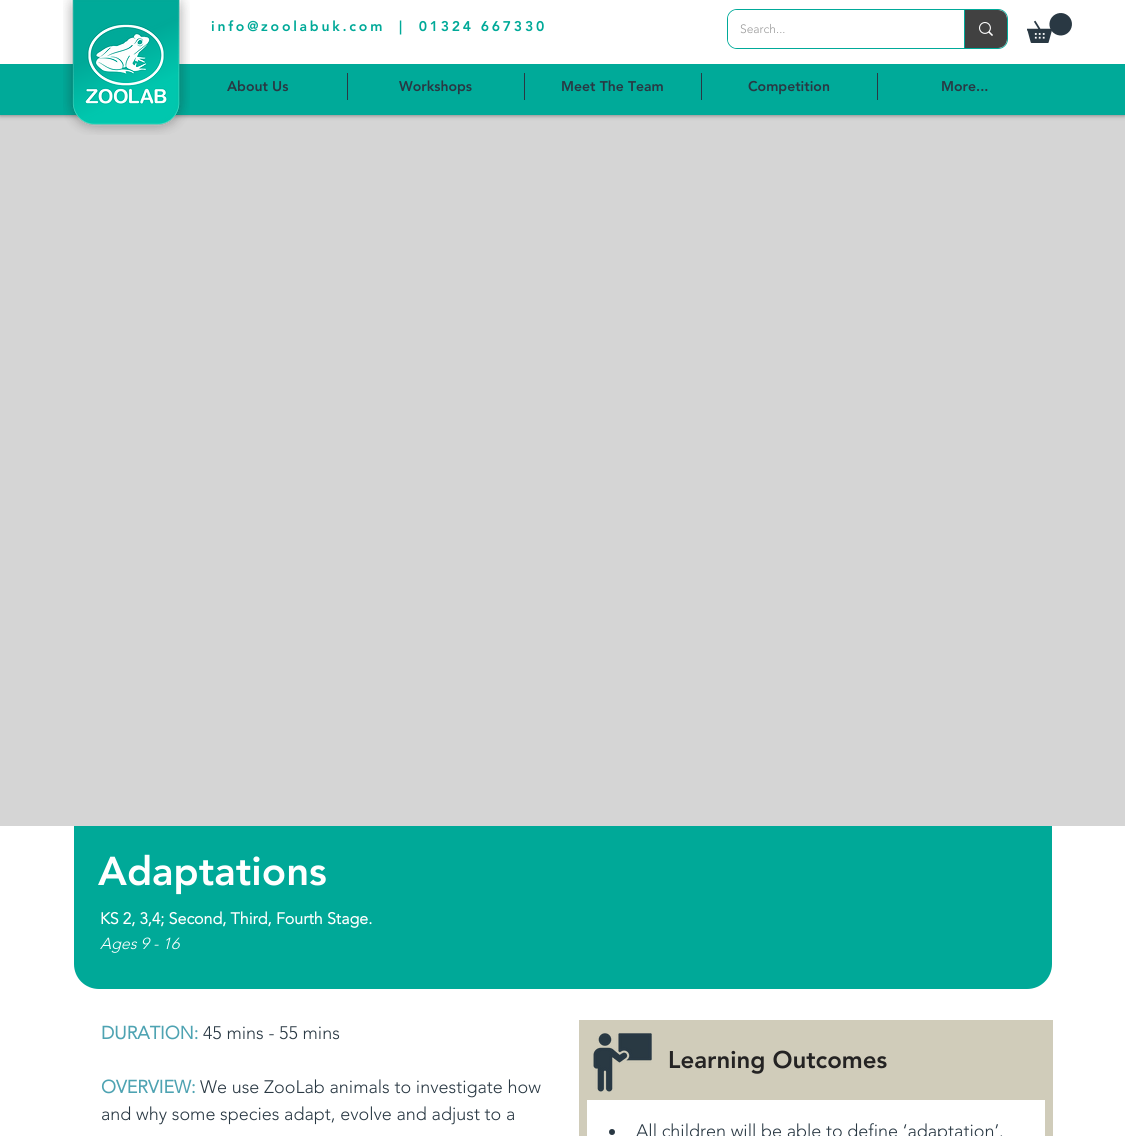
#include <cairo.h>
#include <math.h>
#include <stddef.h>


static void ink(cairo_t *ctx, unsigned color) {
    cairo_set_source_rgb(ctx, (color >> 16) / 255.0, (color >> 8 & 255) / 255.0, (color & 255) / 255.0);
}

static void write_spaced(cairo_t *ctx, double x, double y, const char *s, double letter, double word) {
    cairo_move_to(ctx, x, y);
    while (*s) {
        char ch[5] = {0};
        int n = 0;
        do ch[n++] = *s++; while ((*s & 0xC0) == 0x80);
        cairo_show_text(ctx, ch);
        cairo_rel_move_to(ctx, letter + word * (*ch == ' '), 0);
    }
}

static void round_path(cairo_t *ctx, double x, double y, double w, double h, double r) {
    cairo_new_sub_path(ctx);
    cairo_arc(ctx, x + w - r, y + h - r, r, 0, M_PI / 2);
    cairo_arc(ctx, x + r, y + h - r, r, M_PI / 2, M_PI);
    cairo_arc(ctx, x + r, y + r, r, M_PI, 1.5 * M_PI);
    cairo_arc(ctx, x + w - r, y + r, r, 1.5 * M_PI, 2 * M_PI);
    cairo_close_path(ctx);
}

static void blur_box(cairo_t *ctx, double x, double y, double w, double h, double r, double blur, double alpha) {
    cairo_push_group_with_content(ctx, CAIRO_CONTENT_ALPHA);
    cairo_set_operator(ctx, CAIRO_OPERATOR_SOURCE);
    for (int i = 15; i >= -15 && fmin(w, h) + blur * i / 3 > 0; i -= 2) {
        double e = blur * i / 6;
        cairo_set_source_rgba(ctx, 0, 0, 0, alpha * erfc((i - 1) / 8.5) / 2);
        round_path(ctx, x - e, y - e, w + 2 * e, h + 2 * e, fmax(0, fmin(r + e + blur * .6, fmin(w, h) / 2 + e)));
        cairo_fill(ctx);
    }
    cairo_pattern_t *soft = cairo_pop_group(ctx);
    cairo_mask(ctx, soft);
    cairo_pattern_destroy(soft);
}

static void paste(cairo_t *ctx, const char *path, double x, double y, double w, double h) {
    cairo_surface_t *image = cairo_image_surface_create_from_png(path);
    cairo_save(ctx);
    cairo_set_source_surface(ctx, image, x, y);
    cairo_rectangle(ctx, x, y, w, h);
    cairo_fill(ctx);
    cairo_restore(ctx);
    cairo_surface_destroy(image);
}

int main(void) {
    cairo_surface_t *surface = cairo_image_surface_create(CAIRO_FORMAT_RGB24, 1125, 1136);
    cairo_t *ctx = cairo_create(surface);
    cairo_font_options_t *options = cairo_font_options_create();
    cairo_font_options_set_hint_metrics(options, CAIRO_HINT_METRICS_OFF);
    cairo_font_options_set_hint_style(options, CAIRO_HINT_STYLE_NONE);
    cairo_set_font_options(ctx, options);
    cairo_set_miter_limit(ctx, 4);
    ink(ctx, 0xFFFFFF);
    cairo_paint(ctx);
    ink(ctx, 0xD5D5D5);
    cairo_rectangle(ctx, 0, 115, 1125, 711);
    cairo_fill(ctx);
    ink(ctx, 0x000000);
    blur_box(ctx, 0, 0, 1125, 115, 0, 2.5, 0.5);
    ink(ctx, 0x00AA99);
    cairo_rectangle(ctx, 0, 64, 1125, 51);
    cairo_fill(ctx);
    ink(ctx, 0xFFFFFF);
    cairo_rectangle(ctx, 0, 0, 1125, 64);
    cairo_fill(ctx);
    paste(ctx, "media/1.png", 63, 0, 127, 135);
    cairo_select_font_face(ctx, "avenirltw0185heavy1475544 Black", CAIRO_FONT_SLANT_NORMAL, CAIRO_FONT_WEIGHT_NORMAL);
    cairo_set_font_size(ctx, 14);
    ink(ctx, 0x00A998);
    write_spaced(ctx, 211, 31, "info@zoolabuk.com", 2.75, 0);
    write_spaced(ctx, 399, 31, "|  01324 667330", 2.75, 0);
    round_path(ctx, 727.5, 9.5, 280, 39, 9.5);
    ink(ctx, 0x00AA99);
    cairo_set_line_width(ctx, 1);
    cairo_stroke(ctx);
    ink(ctx, 0xFFFFFF);
    round_path(ctx, 728, 10, 279, 38, 9);
    cairo_fill(ctx);
    cairo_select_font_face(ctx, "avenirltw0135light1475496 Light", CAIRO_FONT_SLANT_NORMAL, CAIRO_FONT_WEIGHT_NORMAL);
    cairo_set_font_size(ctx, 12);
    ink(ctx, 0x999999);
    cairo_move_to(ctx, 740, 33);
    cairo_show_text(ctx, "Search...");
    ink(ctx, 0x414141);
    cairo_new_path(ctx);
    cairo_move_to(ctx, 964, 10);
    cairo_line_to(ctx, 998, 10);
    cairo_curve_to(ctx, 1003, 10, 1007, 14, 1007, 19);
    cairo_line_to(ctx, 1007, 39);
    cairo_curve_to(ctx, 1007, 44, 1003, 48, 998, 48);
    cairo_line_to(ctx, 964, 48);
    cairo_close_path(ctx);
    cairo_fill(ctx);
    ink(ctx, 0x00AA99);
    cairo_rectangle(ctx, 964, 10, 1, 38);
    cairo_fill(ctx);
    paste(ctx, "media/2.png", 979, 22, 14, 14);
    paste(ctx, "media/3.png", 1027, 13, 45, 30);
    cairo_select_font_face(ctx, "avenirltw0185heavy1475544 Black", CAIRO_FONT_SLANT_NORMAL, CAIRO_FONT_WEIGHT_NORMAL);
    cairo_set_font_size(ctx, 14);
    ink(ctx, 0x293843);
    cairo_move_to(ctx, 227, 91);
    cairo_show_text(ctx, "About Us");
    cairo_rectangle(ctx, 347, 73, 1, 27);
    cairo_fill(ctx);
    cairo_move_to(ctx, 399, 91);
    cairo_show_text(ctx, "Workshops");
    cairo_rectangle(ctx, 524, 73, 1, 27);
    cairo_fill(ctx);
    cairo_move_to(ctx, 561, 91);
    cairo_show_text(ctx, "Meet The Team");
    cairo_rectangle(ctx, 701, 73, 1, 27);
    cairo_fill(ctx);
    cairo_move_to(ctx, 748, 91);
    cairo_show_text(ctx, "Competition");
    cairo_rectangle(ctx, 877, 73, 1, 27);
    cairo_fill(ctx);
    cairo_move_to(ctx, 941, 91);
    cairo_show_text(ctx, "More...");
    ink(ctx, 0x00A998);
    cairo_new_path(ctx);
    cairo_move_to(ctx, 74, 826);
    cairo_line_to(ctx, 1052, 826);
    cairo_line_to(ctx, 1052, 964);
    cairo_curve_to(ctx, 1052, 978, 1041, 989, 1027, 989);
    cairo_line_to(ctx, 99, 989);
    cairo_curve_to(ctx, 85, 989, 74, 978, 74, 964);
    cairo_close_path(ctx);
    cairo_fill(ctx);
    cairo_set_font_size(ctx, 40);
    ink(ctx, 0xFFFFFF);
    cairo_move_to(ctx, 98, 885);
    cairo_show_text(ctx, "Adaptations");
    cairo_select_font_face(ctx, "avenirltw0135light1475496", CAIRO_FONT_SLANT_NORMAL, CAIRO_FONT_WEIGHT_BOLD);
    cairo_set_font_size(ctx, 16);
    cairo_move_to(ctx, 100, 924);
    cairo_show_text(ctx, "KS 2, 3,4; Second, Third, Fourth Stage.");
    cairo_select_font_face(ctx, "avenirltw0135light1475496 Light", CAIRO_FONT_SLANT_ITALIC, CAIRO_FONT_WEIGHT_NORMAL);
    cairo_move_to(ctx, 100, 949);
    cairo_show_text(ctx, "Ages 9 - 16");
    cairo_select_font_face(ctx, "avenirltw0135light1475496", CAIRO_FONT_SLANT_NORMAL, CAIRO_FONT_WEIGHT_BOLD);
    cairo_set_font_size(ctx, 18);
    ink(ctx, 0x4EA3B2);
    cairo_move_to(ctx, 101, 1039);
    cairo_show_text(ctx, "DURATION:");
    cairo_select_font_face(ctx, "avenirltw0135light1475496 Light", CAIRO_FONT_SLANT_NORMAL, CAIRO_FONT_WEIGHT_NORMAL);
    ink(ctx, 0x293843);
    cairo_move_to(ctx, 203, 1039);
    cairo_show_text(ctx, "45 mins - 55 mins");
    cairo_select_font_face(ctx, "avenirltw0135light1475496", CAIRO_FONT_SLANT_NORMAL, CAIRO_FONT_WEIGHT_BOLD);
    ink(ctx, 0x4EA3B2);
    cairo_move_to(ctx, 101, 1093);
    cairo_show_text(ctx, "OVERVIEW:");
    cairo_select_font_face(ctx, "avenirltw0135light1475496 Light", CAIRO_FONT_SLANT_NORMAL, CAIRO_FONT_WEIGHT_NORMAL);
    ink(ctx, 0x293843);
    cairo_move_to(ctx, 200, 1093);
    cairo_show_text(ctx, "We use ZooLab animals to investigate how");
    cairo_move_to(ctx, 101, 1120);
    cairo_show_text(ctx, "and why some species adapt, evolve and adjust to a");
    cairo_rectangle(ctx, 583, 1034, 466, 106);
    ink(ctx, 0xD0CCBA);
    cairo_set_line_width(ctx, 8);
    cairo_stroke(ctx);
    cairo_rectangle(ctx, 579, 1020, 474, 80);
    cairo_fill(ctx);
    paste(ctx, "media/4.png", 593, 1033, 59, 59);
    cairo_select_font_face(ctx, "avenirltw0185heavy1475544 Black", CAIRO_FONT_SLANT_NORMAL, CAIRO_FONT_WEIGHT_NORMAL);
    cairo_set_font_size(ctx, 24);
    ink(ctx, 0x242323);
    cairo_move_to(ctx, 668, 1068);
    cairo_show_text(ctx, "Learning Outcomes");
    ink(ctx, 0x293843);
    cairo_new_path(ctx);
    cairo_arc(ctx, 612, 1132, 3, 0, 2 * M_PI);
    cairo_fill(ctx);
    cairo_select_font_face(ctx, "avenirltw0135light1475496 Light", CAIRO_FONT_SLANT_NORMAL, CAIRO_FONT_WEIGHT_NORMAL);
    cairo_set_font_size(ctx, 18);
    cairo_move_to(ctx, 636, 1137);
    cairo_show_text(ctx, "All children will be able to define ‘adaptation’.");
    cairo_surface_write_to_png(surface, "image.png");
    cairo_font_options_destroy(options);
    cairo_destroy(ctx);
    cairo_surface_destroy(surface);
    return 0;
}
